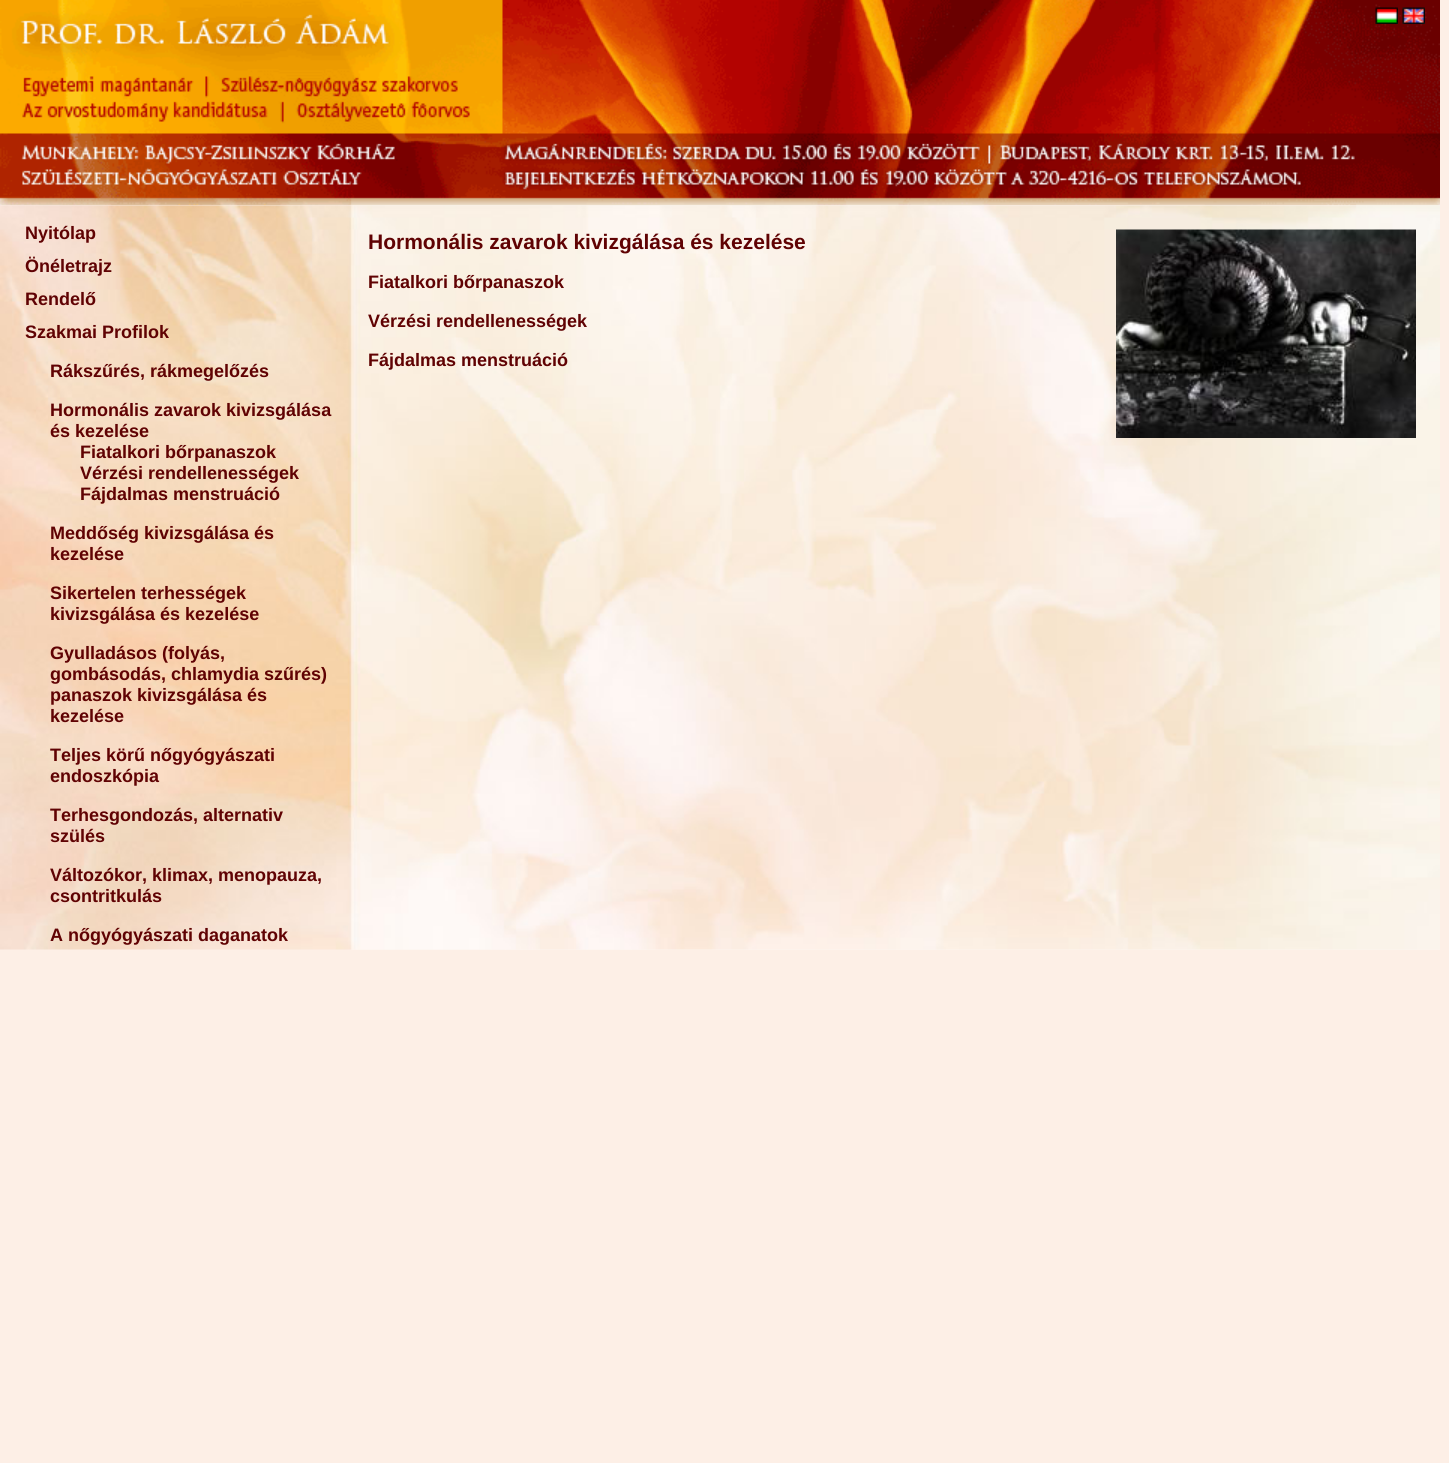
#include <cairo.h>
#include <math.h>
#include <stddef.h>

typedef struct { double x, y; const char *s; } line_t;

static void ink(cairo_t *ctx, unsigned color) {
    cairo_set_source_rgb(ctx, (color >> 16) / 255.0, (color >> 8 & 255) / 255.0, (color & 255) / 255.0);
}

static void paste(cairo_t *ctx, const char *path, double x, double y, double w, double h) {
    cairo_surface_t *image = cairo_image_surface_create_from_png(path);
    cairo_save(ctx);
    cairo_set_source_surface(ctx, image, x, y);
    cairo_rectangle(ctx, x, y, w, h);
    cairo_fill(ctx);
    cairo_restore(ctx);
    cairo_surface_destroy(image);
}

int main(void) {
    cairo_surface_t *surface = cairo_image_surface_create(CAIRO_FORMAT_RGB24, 1449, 1463);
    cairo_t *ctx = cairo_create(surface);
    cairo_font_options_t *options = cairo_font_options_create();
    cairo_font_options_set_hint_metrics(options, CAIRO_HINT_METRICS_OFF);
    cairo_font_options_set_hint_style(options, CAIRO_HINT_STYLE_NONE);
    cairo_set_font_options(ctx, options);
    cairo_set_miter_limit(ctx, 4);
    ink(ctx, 0xFDEFE6);
    cairo_paint(ctx);
    paste(ctx, "media/1.png", 0, 0, 1440, 206);
    paste(ctx, "media/2.png", 1375, 7, 23, 17);
    paste(ctx, "media/3.png", 1402, 7, 23, 17);
    paste(ctx, "media/4.png", 1, 205, 1439, 745);
    paste(ctx, "media/5.png", 0, 205, 1440, 745);
    cairo_select_font_face(ctx, "Liberation Sans", CAIRO_FONT_SLANT_NORMAL, CAIRO_FONT_WEIGHT_BOLD);
    cairo_set_font_size(ctx, 18);
    ink(ctx, 0x600203);
    {
        static const line_t items[] = {
            {25, 239, "Nyitólap"},
            {25, 272, "Önéletrajz"},
            {25, 305, "Rendelő"},
            {25, 338, "Szakmai Profilok"},
            {50, 377, "Rákszűrés, rákmegelőzés"},
            {50, 416, "Hormonális zavarok kivizsgálása"},
            {50, 437, "és kezelése"},
            {80, 458, "Fiatalkori bőrpanaszok"},
            {80, 479, "Vérzési rendellenességek"},
            {80, 500, "Fájdalmas menstruáció"},
            {50, 539, "Meddőség kivizsgálása és"},
            {50, 560, "kezelése"},
            {50, 599, "Sikertelen terhességek"},
            {50, 620, "kivizsgálása és kezelése"},
            {50, 659, "Gyulladásos (folyás,"},
            {50, 680, "gombásodás, chlamydia szűrés)"},
            {50, 701, "panaszok kivizsgálása és"},
            {50, 722, "kezelése"},
            {50, 761, "Teljes körű nőgyógyászati"},
            {50, 782, "endoszkópia"},
            {50, 821, "Terhesgondozás, alternativ"},
            {50, 842, "szülés"},
            {50, 881, "Változókor, klimax, menopauza,"},
            {50, 902, "csontritkulás"},
            {50, 941, "A nőgyógyászati daganatok"},
        };
        for (size_t i = 0; i < sizeof items / sizeof *items; i++) {
            cairo_move_to(ctx, items[i].x, items[i].y);
            cairo_show_text(ctx, items[i].s);
        }
    }
    cairo_set_font_size(ctx, 21);
    cairo_move_to(ctx, 368, 249);
    cairo_show_text(ctx, "Hormonális zavarok kivizgálása és kezelése");
    cairo_set_font_size(ctx, 18);
    {
        static const line_t items[] = {
            {368, 288, "Fiatalkori bőrpanaszok"},
            {368, 327, "Vérzési rendellenességek"},
            {368, 366, "Fájdalmas menstruáció"},
        };
        for (size_t i = 0; i < sizeof items / sizeof *items; i++) {
            cairo_move_to(ctx, items[i].x, items[i].y);
            cairo_show_text(ctx, items[i].s);
        }
    }
    paste(ctx, "media/6.png", 1116, 229, 300, 209);
    cairo_surface_write_to_png(surface, "image.png");
    cairo_font_options_destroy(options);
    cairo_destroy(ctx);
    cairo_surface_destroy(surface);
    return 0;
}
